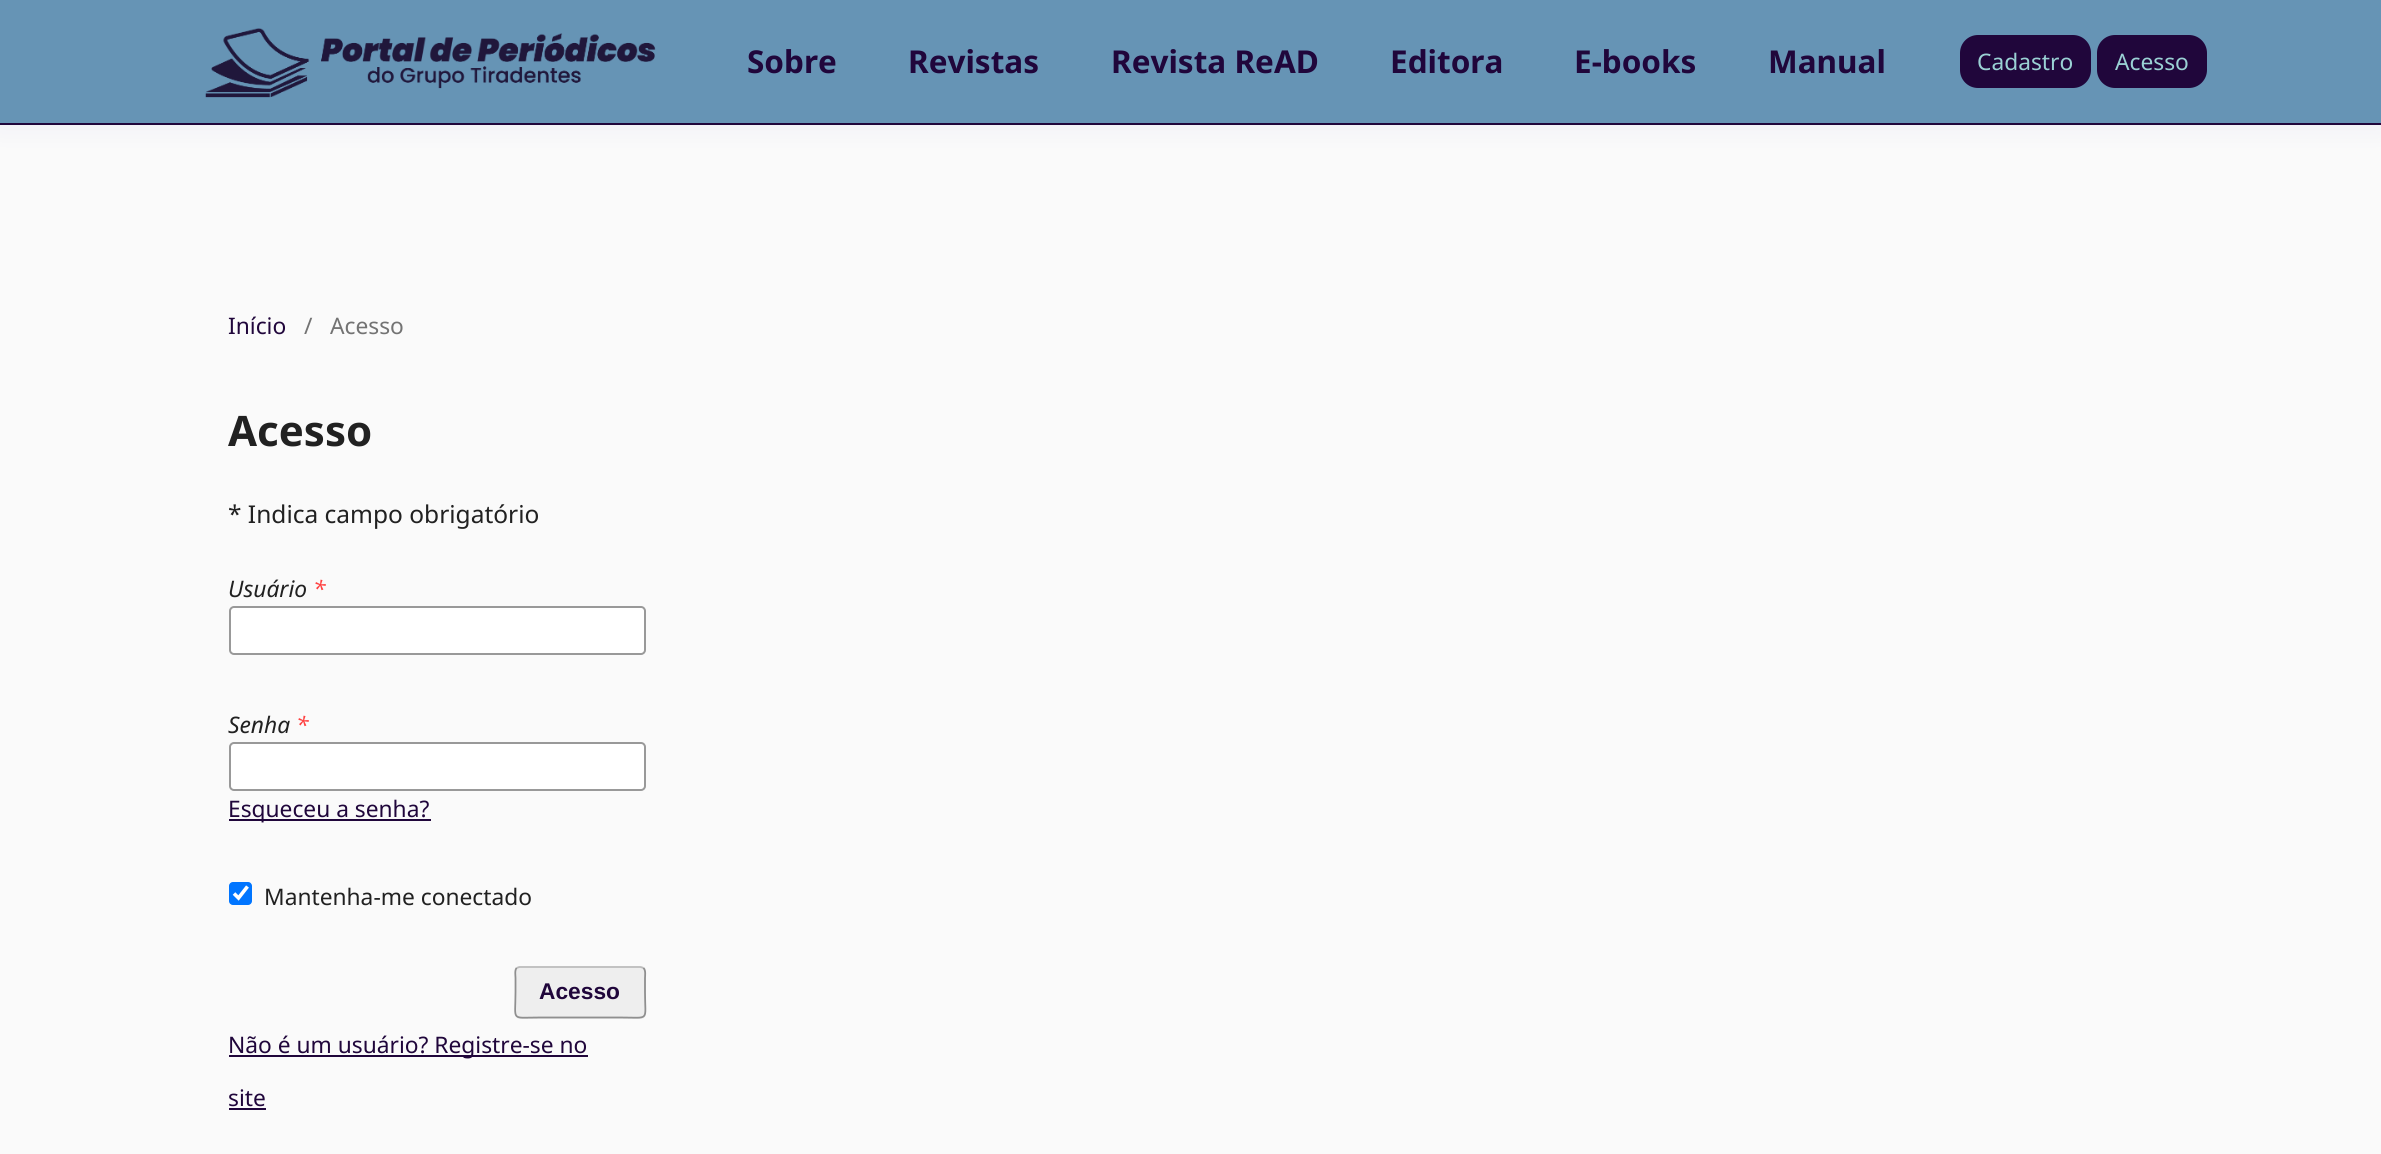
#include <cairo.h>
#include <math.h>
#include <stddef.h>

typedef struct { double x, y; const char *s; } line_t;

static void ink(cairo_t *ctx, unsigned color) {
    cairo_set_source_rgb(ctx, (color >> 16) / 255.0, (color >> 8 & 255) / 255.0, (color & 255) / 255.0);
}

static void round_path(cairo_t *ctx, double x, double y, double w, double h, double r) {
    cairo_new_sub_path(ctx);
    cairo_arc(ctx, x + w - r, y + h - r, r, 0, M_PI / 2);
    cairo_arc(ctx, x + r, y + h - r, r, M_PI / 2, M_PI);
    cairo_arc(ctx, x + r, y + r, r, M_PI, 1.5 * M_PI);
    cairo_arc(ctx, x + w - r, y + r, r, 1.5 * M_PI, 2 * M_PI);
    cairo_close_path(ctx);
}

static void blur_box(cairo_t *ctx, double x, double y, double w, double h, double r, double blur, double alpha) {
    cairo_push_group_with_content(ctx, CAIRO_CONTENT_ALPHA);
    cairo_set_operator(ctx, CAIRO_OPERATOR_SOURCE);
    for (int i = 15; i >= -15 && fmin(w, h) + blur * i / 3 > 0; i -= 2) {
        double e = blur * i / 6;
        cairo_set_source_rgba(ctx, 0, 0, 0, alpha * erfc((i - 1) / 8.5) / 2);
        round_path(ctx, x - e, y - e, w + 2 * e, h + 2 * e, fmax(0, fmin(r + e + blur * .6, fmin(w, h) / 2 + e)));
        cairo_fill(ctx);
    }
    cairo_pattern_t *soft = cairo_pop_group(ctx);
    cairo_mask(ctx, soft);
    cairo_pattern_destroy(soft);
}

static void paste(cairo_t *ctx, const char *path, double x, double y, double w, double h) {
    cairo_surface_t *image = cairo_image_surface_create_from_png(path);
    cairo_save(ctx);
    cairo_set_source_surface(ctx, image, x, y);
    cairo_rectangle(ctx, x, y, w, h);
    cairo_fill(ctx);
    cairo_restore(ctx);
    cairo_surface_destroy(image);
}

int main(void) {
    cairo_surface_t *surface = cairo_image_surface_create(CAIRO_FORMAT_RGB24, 2381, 1154);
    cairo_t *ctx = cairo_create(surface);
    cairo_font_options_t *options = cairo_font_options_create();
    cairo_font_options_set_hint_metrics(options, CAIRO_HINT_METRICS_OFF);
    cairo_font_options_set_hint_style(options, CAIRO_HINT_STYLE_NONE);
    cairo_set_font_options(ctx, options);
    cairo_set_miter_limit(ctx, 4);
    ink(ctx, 0xFAFAFA);
    cairo_paint(ctx);
    ink(ctx, 0x716ACA);
    blur_box(ctx, -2, 0, 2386, 128, 0, 13, 0.08);
    ink(ctx, 0x6694B5);
    cairo_rectangle(ctx, 0, 0, 2381, 123);
    cairo_fill(ctx);
    ink(ctx, 0x20063B);
    cairo_rectangle(ctx, 0, 123, 2381, 2);
    cairo_fill(ctx);
    paste(ctx, "media/1.png", 205, 28, 451, 70);
    cairo_select_font_face(ctx, "Noto Sans", CAIRO_FONT_SLANT_NORMAL, CAIRO_FONT_WEIGHT_BOLD);
    cairo_set_font_size(ctx, 31.5);
    {
        static const line_t items[] = {
            {747, 73, "Sobre"},
            {908, 73, "Revistas"},
            {1111, 73, "Revista ReAD"},
            {1390, 73, "Editora"},
            {1574, 73, "E-books"},
            {1768, 73, "Manual"},
        };
        for (size_t i = 0; i < sizeof items / sizeof *items; i++) {
            cairo_move_to(ctx, items[i].x, items[i].y);
            cairo_show_text(ctx, items[i].s);
        }
    }
    round_path(ctx, 1960, 35, 131, 53, 18);
    cairo_fill(ctx);
    cairo_select_font_face(ctx, "Noto Sans", CAIRO_FONT_SLANT_NORMAL, CAIRO_FONT_WEIGHT_NORMAL);
    cairo_set_font_size(ctx, 22.75);
    ink(ctx, 0x9AD1D4);
    cairo_move_to(ctx, 1977, 70);
    cairo_show_text(ctx, "Cadastro");
    ink(ctx, 0x20063B);
    round_path(ctx, 2097, 35, 110, 53, 18);
    cairo_fill(ctx);
    ink(ctx, 0x9AD1D4);
    cairo_move_to(ctx, 2115, 70);
    cairo_show_text(ctx, "Acesso");
    ink(ctx, 0x20063B);
    cairo_move_to(ctx, 228, 334);
    cairo_show_text(ctx, "Início");
    ink(ctx, 0x737373);
    cairo_move_to(ctx, 304, 334);
    cairo_show_text(ctx, "/");
    cairo_move_to(ctx, 330, 334);
    cairo_show_text(ctx, "Acesso");
    cairo_select_font_face(ctx, "Noto Sans", CAIRO_FONT_SLANT_NORMAL, CAIRO_FONT_WEIGHT_BOLD);
    cairo_set_font_size(ctx, 42);
    ink(ctx, 0x212121);
    cairo_move_to(ctx, 228, 446);
    cairo_show_text(ctx, "Acesso");
    cairo_select_font_face(ctx, "Noto Sans", CAIRO_FONT_SLANT_NORMAL, CAIRO_FONT_WEIGHT_NORMAL);
    cairo_set_font_size(ctx, 24.5);
    cairo_move_to(ctx, 228, 523);
    cairo_show_text(ctx, "* Indica campo obrigatório");
    cairo_select_font_face(ctx, "Noto Sans", CAIRO_FONT_SLANT_ITALIC, CAIRO_FONT_WEIGHT_NORMAL);
    cairo_set_font_size(ctx, 22.75);
    cairo_move_to(ctx, 228, 597);
    cairo_show_text(ctx, "Usuário");
    ink(ctx, 0xFF4040);
    cairo_move_to(ctx, 313, 597);
    cairo_show_text(ctx, "*");
    ink(ctx, 0xFFFFFF);
    round_path(ctx, 230, 607, 415, 47, 4);
    cairo_fill_preserve(ctx);
    ink(ctx, 0x999999);
    cairo_stroke(ctx);
    ink(ctx, 0x212121);
    cairo_move_to(ctx, 228, 733);
    cairo_show_text(ctx, "Senha");
    ink(ctx, 0xFF4040);
    cairo_move_to(ctx, 296, 733);
    cairo_show_text(ctx, "*");
    ink(ctx, 0xFFFFFF);
    round_path(ctx, 230, 743, 415, 47, 4);
    cairo_fill_preserve(ctx);
    ink(ctx, 0x999999);
    cairo_stroke(ctx);
    ink(ctx, 0x20063B);
    cairo_rectangle(ctx, 229, 819, 202, 2);
    cairo_fill(ctx);
    cairo_select_font_face(ctx, "Noto Sans", CAIRO_FONT_SLANT_NORMAL, CAIRO_FONT_WEIGHT_NORMAL);
    cairo_move_to(ctx, 228, 817);
    cairo_show_text(ctx, "Esqueceu a senha?");
    ink(ctx, 0x0075FF);
    round_path(ctx, 229, 882, 23, 23, 4);
    cairo_fill(ctx);
    cairo_new_path(ctx);
    cairo_move_to(ctx, 234, 893.5);
    cairo_line_to(ctx, 238.5, 898);
    cairo_line_to(ctx, 247.5, 886.5);
    ink(ctx, 0xFFFFFF);
    cairo_set_line_width(ctx, 3.6);
    cairo_stroke(ctx);
    ink(ctx, 0x212121);
    cairo_move_to(ctx, 264, 905);
    cairo_show_text(ctx, "Mantenha-me conectado");
    ink(ctx, 0xEEEEEE);
    round_path(ctx, 515, 966, 131, 53, 5);
    cairo_fill(ctx);
    cairo_new_path(ctx);
    cairo_move_to(ctx, 516.5, 968);
    cairo_line_to(ctx, 519.5, 967);
    cairo_line_to(ctx, 620.5, 967);
    cairo_line_to(ctx, 640.5, 967);
    cairo_line_to(ctx, 643.5, 968);
    ink(ctx, 0xBBBBBB);
    cairo_set_line_width(ctx, 1.8);
    cairo_stroke(ctx);
    cairo_new_path(ctx);
    cairo_move_to(ctx, 643.5, 968);
    cairo_curve_to(ctx, 646, 970.5, 645, 976, 645, 978);
    cairo_line_to(ctx, 645, 992);
    cairo_curve_to(ctx, 645, 1022, 650.5, 1017.5, 620.5, 1017.5);
    cairo_line_to(ctx, 540, 1017.5);
    cairo_curve_to(ctx, 510, 1017.5, 515.5, 1022, 515.5, 992);
    cairo_line_to(ctx, 515.5, 978);
    cairo_curve_to(ctx, 515.5, 976, 514.5, 970.5, 516.5, 968);
    cairo_set_source_rgba(ctx, 0, 0, 0, 0.4);
    cairo_stroke(ctx);
    cairo_select_font_face(ctx, "Liberation Sans", CAIRO_FONT_SLANT_NORMAL, CAIRO_FONT_WEIGHT_BOLD);
    ink(ctx, 0x20063B);
    cairo_move_to(ctx, 539, 999);
    cairo_show_text(ctx, "Acesso");
    cairo_rectangle(ctx, 229, 1055, 359, 2);
    cairo_fill(ctx);
    cairo_select_font_face(ctx, "Noto Sans", CAIRO_FONT_SLANT_NORMAL, CAIRO_FONT_WEIGHT_NORMAL);
    cairo_move_to(ctx, 228, 1053);
    cairo_show_text(ctx, "Não é um usuário? Registre-se no");
    cairo_move_to(ctx, 228, 1106);
    cairo_show_text(ctx, "site");
    cairo_rectangle(ctx, 229, 1108, 37, 2);
    cairo_fill(ctx);
    cairo_surface_write_to_png(surface, "image.png");
    cairo_font_options_destroy(options);
    cairo_destroy(ctx);
    cairo_surface_destroy(surface);
    return 0;
}
